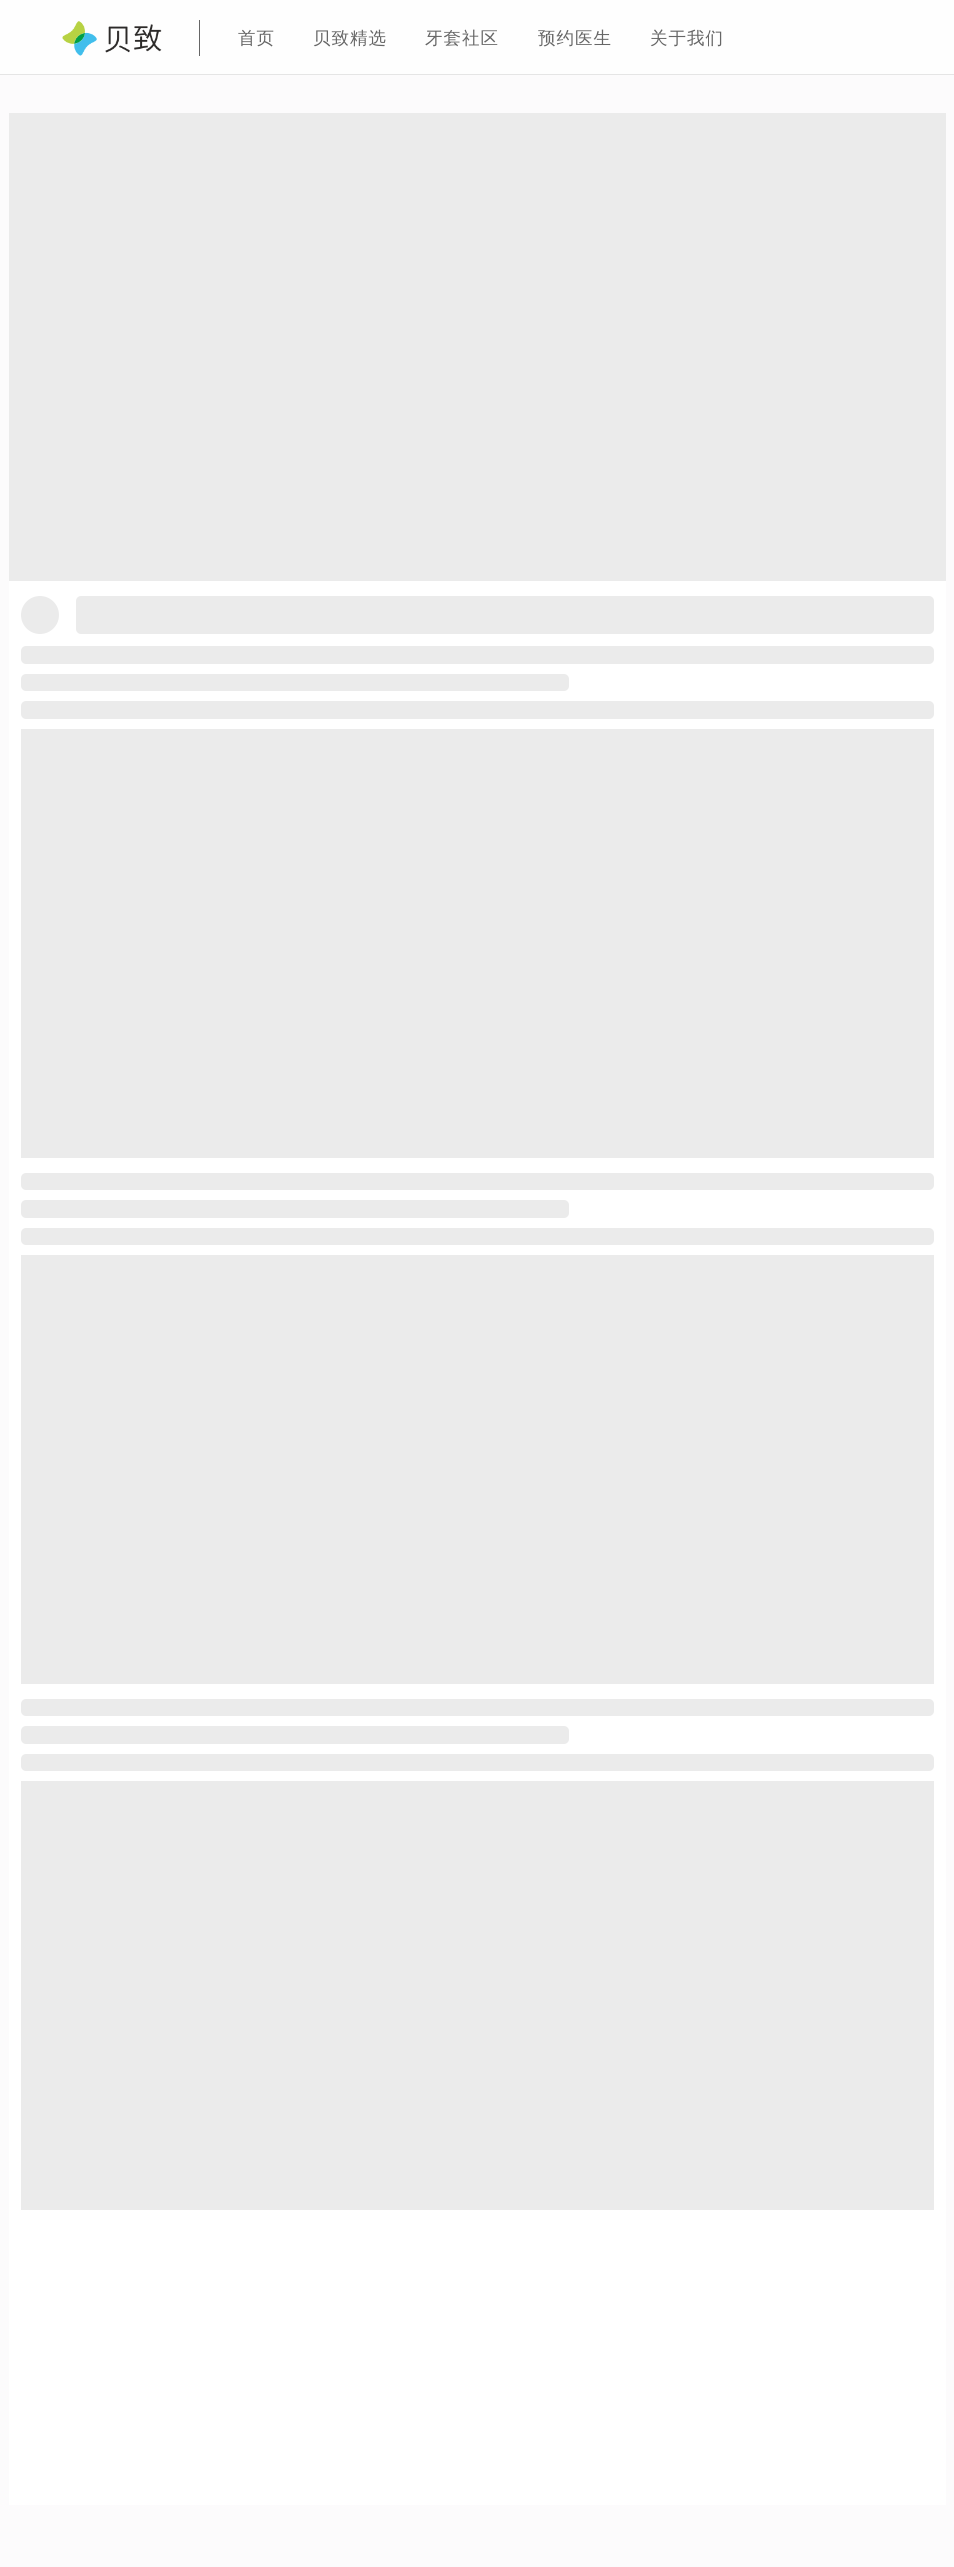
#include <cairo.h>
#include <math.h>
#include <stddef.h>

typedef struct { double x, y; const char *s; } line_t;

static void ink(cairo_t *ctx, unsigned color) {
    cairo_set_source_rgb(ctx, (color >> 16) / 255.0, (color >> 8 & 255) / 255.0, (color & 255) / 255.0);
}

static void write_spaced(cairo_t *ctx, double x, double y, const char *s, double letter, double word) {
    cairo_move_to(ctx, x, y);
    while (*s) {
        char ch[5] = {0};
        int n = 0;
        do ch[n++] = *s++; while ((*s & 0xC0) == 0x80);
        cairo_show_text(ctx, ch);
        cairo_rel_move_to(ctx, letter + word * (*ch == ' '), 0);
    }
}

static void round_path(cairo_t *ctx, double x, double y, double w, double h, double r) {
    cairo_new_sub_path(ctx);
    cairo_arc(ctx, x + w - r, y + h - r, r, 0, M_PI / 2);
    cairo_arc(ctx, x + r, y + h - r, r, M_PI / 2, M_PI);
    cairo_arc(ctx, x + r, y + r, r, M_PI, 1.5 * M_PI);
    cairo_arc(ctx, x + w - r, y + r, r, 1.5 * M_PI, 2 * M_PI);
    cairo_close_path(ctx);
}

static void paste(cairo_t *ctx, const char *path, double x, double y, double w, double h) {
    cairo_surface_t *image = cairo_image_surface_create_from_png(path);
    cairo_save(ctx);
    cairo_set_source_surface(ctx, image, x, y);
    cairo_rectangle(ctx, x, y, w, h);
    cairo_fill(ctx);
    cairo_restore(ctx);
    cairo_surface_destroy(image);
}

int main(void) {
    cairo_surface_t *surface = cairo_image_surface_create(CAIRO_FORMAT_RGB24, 954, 2567);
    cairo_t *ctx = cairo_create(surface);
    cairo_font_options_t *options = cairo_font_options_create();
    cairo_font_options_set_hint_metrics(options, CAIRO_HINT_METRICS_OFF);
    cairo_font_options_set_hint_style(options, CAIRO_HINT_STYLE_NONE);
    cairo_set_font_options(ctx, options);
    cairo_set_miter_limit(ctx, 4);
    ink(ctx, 0xFCFBFC);
    cairo_paint(ctx);
    ink(ctx, 0xFEFEFE);
    cairo_rectangle(ctx, 0, 0, 954, 74);
    cairo_fill(ctx);
    ink(ctx, 0xE5E5E5);
    cairo_rectangle(ctx, 0, 74, 954, 1);
    cairo_fill(ctx);
    paste(ctx, "media/1.png", 62, 21, 100, 35);
    ink(ctx, 0x666666);
    cairo_rectangle(ctx, 199, 20, 1, 36);
    cairo_fill(ctx);
    cairo_select_font_face(ctx, "WenQuanYi Zen Hei Medium", CAIRO_FONT_SLANT_NORMAL, CAIRO_FONT_WEIGHT_NORMAL);
    cairo_set_font_size(ctx, 17.5);
    {
        static const line_t items[] = {
            {238, 44, "首页"},
            {313, 44, "贝致精选"},
            {425, 44, "牙套社区"},
            {538, 44, "预约医生"},
            {650, 44, "关于我们"},
        };
        for (size_t i = 0; i < sizeof items / sizeof *items; i++) {
            write_spaced(ctx, items[i].x, items[i].y, items[i].s, 1, 0);
        }
    }
    ink(ctx, 0xFFFFFF);
    cairo_rectangle(ctx, 9, 581, 937, 1924);
    cairo_fill(ctx);
    ink(ctx, 0xEBEBEB);
    cairo_rectangle(ctx, 9, 113, 937, 468);
    cairo_fill(ctx);
    cairo_arc(ctx, 40, 615, 19, 0, 2 * M_PI);
    cairo_fill(ctx);
    round_path(ctx, 76, 596, 858, 38, 5);
    cairo_fill(ctx);
    round_path(ctx, 21, 646, 913, 18, 5);
    cairo_fill(ctx);
    round_path(ctx, 21, 674, 548, 17, 5);
    cairo_fill(ctx);
    round_path(ctx, 21, 701, 913, 18, 5);
    cairo_fill(ctx);
    cairo_rectangle(ctx, 21, 729, 913, 429);
    cairo_fill(ctx);
    round_path(ctx, 21, 1173, 913, 17, 5);
    cairo_fill(ctx);
    round_path(ctx, 21, 1200, 548, 18, 5);
    cairo_fill(ctx);
    round_path(ctx, 21, 1228, 913, 17, 5);
    cairo_fill(ctx);
    cairo_rectangle(ctx, 21, 1255, 913, 429);
    cairo_fill(ctx);
    round_path(ctx, 21, 1699, 913, 17, 5);
    cairo_fill(ctx);
    round_path(ctx, 21, 1726, 548, 18, 5);
    cairo_fill(ctx);
    round_path(ctx, 21, 1754, 913, 17, 5);
    cairo_fill(ctx);
    cairo_rectangle(ctx, 21, 1781, 913, 429);
    cairo_fill(ctx);
    cairo_surface_write_to_png(surface, "image.png");
    cairo_font_options_destroy(options);
    cairo_destroy(ctx);
    cairo_surface_destroy(surface);
    return 0;
}
